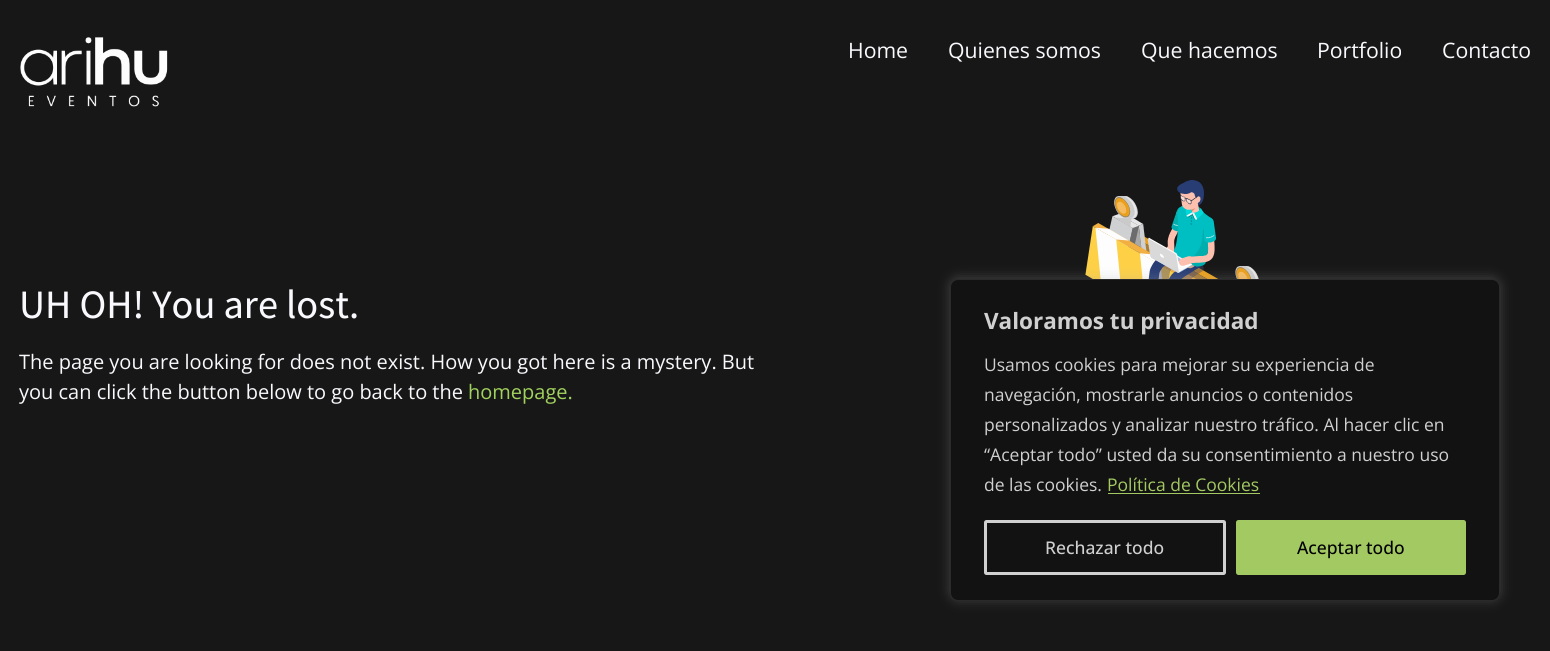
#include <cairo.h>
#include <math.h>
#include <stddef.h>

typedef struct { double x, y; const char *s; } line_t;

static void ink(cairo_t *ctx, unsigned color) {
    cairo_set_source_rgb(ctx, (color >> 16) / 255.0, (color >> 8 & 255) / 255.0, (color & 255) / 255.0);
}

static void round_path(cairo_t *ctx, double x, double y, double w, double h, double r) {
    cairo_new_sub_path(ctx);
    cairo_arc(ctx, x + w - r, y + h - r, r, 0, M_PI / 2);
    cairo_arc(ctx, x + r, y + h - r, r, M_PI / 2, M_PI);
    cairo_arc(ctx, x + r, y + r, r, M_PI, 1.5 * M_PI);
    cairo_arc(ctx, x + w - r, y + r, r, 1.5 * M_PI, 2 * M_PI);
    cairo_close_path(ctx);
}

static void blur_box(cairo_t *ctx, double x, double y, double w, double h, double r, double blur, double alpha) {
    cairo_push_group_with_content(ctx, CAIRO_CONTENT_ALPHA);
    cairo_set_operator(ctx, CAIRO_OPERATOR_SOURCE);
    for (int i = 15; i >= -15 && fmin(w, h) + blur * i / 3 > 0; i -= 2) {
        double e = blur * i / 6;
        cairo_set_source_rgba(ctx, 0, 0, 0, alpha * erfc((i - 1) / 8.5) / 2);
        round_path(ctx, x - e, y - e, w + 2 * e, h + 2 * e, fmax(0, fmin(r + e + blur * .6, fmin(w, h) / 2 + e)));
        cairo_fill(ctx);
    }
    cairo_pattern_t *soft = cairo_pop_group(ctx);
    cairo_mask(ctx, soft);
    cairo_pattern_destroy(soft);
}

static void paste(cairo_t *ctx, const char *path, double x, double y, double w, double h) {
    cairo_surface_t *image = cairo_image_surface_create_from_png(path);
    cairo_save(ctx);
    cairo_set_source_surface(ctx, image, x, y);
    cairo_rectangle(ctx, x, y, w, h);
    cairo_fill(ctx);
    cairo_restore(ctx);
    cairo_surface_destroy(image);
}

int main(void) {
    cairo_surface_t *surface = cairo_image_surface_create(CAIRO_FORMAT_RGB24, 1550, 651);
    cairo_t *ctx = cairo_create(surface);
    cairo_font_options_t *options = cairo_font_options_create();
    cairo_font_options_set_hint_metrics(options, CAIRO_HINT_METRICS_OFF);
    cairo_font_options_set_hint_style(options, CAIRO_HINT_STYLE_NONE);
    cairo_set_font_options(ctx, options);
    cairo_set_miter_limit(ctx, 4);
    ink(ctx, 0x171717);
    cairo_paint(ctx);
    paste(ctx, "media/1.png", 20, 37, 148, 70);
    cairo_select_font_face(ctx, "Open Sans", CAIRO_FONT_SLANT_NORMAL, CAIRO_FONT_WEIGHT_NORMAL);
    cairo_set_font_size(ctx, 21.25);
    ink(ctx, 0xF8F8FD);
    {
        static const line_t items[] = {
            {848, 58, "Home"},
            {948, 58, "Quienes somos"},
            {1141, 58, "Que hacemos"},
            {1317, 58, "Portfolio"},
            {1442, 58, "Contacto"},
        };
        for (size_t i = 0; i < sizeof items / sizeof *items; i++) {
            cairo_move_to(ctx, items[i].x, items[i].y);
            cairo_show_text(ctx, items[i].s);
        }
    }
    paste(ctx, "media/2.png", 1085, 180, 174, 99);
    cairo_select_font_face(ctx, "Assistant Medium", CAIRO_FONT_SLANT_NORMAL, CAIRO_FONT_WEIGHT_NORMAL);
    cairo_set_font_size(ctx, 40.25);
    cairo_move_to(ctx, 19, 318);
    cairo_show_text(ctx, "UH OH! You are lost.");
    cairo_select_font_face(ctx, "Open Sans", CAIRO_FONT_SLANT_NORMAL, CAIRO_FONT_WEIGHT_NORMAL);
    cairo_set_font_size(ctx, 20);
    cairo_move_to(ctx, 19, 369);
    cairo_show_text(ctx, "The page you are looking for does not exist. How you got here is a mystery. But");
    cairo_move_to(ctx, 19, 399);
    cairo_show_text(ctx, "you can click the button below to go back to the");
    ink(ctx, 0xA1D25D);
    cairo_move_to(ctx, 468, 399);
    cairo_show_text(ctx, "homepage.");
    ink(ctx, 0xACABAB);
    blur_box(ctx, 950, 278, 550, 322, 8, 6, 0.3);
    ink(ctx, 0x121212);
    round_path(ctx, 950.5, 279.5, 549, 321, 7.5);
    cairo_fill_preserve(ctx);
    ink(ctx, 0x2A2A2A);
    cairo_set_line_width(ctx, 1);
    cairo_stroke(ctx);
    cairo_select_font_face(ctx, "Open Sans", CAIRO_FONT_SLANT_NORMAL, CAIRO_FONT_WEIGHT_BOLD);
    cairo_set_font_size(ctx, 22.5);
    ink(ctx, 0xD0D0D0);
    cairo_move_to(ctx, 984, 329);
    cairo_show_text(ctx, "Valoramos tu privacidad");
    cairo_select_font_face(ctx, "Open Sans", CAIRO_FONT_SLANT_NORMAL, CAIRO_FONT_WEIGHT_NORMAL);
    cairo_set_font_size(ctx, 17.5);
    {
        static const line_t items[] = {
            {984, 371, "Usamos cookies para mejorar su experiencia de"},
            {984, 401, "navegación, mostrarle anuncios o contenidos"},
            {984, 431, "personalizados y analizar nuestro tráfico. Al hacer clic en"},
            {984, 461, "“Aceptar todo” usted da su consentimiento a nuestro uso"},
            {984, 491, "de las cookies."},
        };
        for (size_t i = 0; i < sizeof items / sizeof *items; i++) {
            cairo_move_to(ctx, items[i].x, items[i].y);
            cairo_show_text(ctx, items[i].s);
        }
    }
    ink(ctx, 0xA3C962);
    cairo_move_to(ctx, 1107, 491);
    cairo_show_text(ctx, "Política de Cookies");
    cairo_rectangle(ctx, 1108, 493, 152, 1);
    cairo_fill(ctx);
    round_path(ctx, 985.5, 521.5, 239, 52, 1);
    ink(ctx, 0xD0D0D0);
    cairo_set_line_width(ctx, 3);
    cairo_stroke(ctx);
    cairo_select_font_face(ctx, "Open Sans Medium", CAIRO_FONT_SLANT_NORMAL, CAIRO_FONT_WEIGHT_NORMAL);
    cairo_move_to(ctx, 1045, 554);
    cairo_show_text(ctx, "Rechazar todo");
    ink(ctx, 0xA3C962);
    round_path(ctx, 1237.5, 521.5, 227, 52, 1);
    cairo_fill_preserve(ctx);
    cairo_stroke(ctx);
    ink(ctx, 0x000000);
    cairo_move_to(ctx, 1297, 554);
    cairo_show_text(ctx, "Aceptar todo");
    cairo_surface_write_to_png(surface, "image.png");
    cairo_font_options_destroy(options);
    cairo_destroy(ctx);
    cairo_surface_destroy(surface);
    return 0;
}
